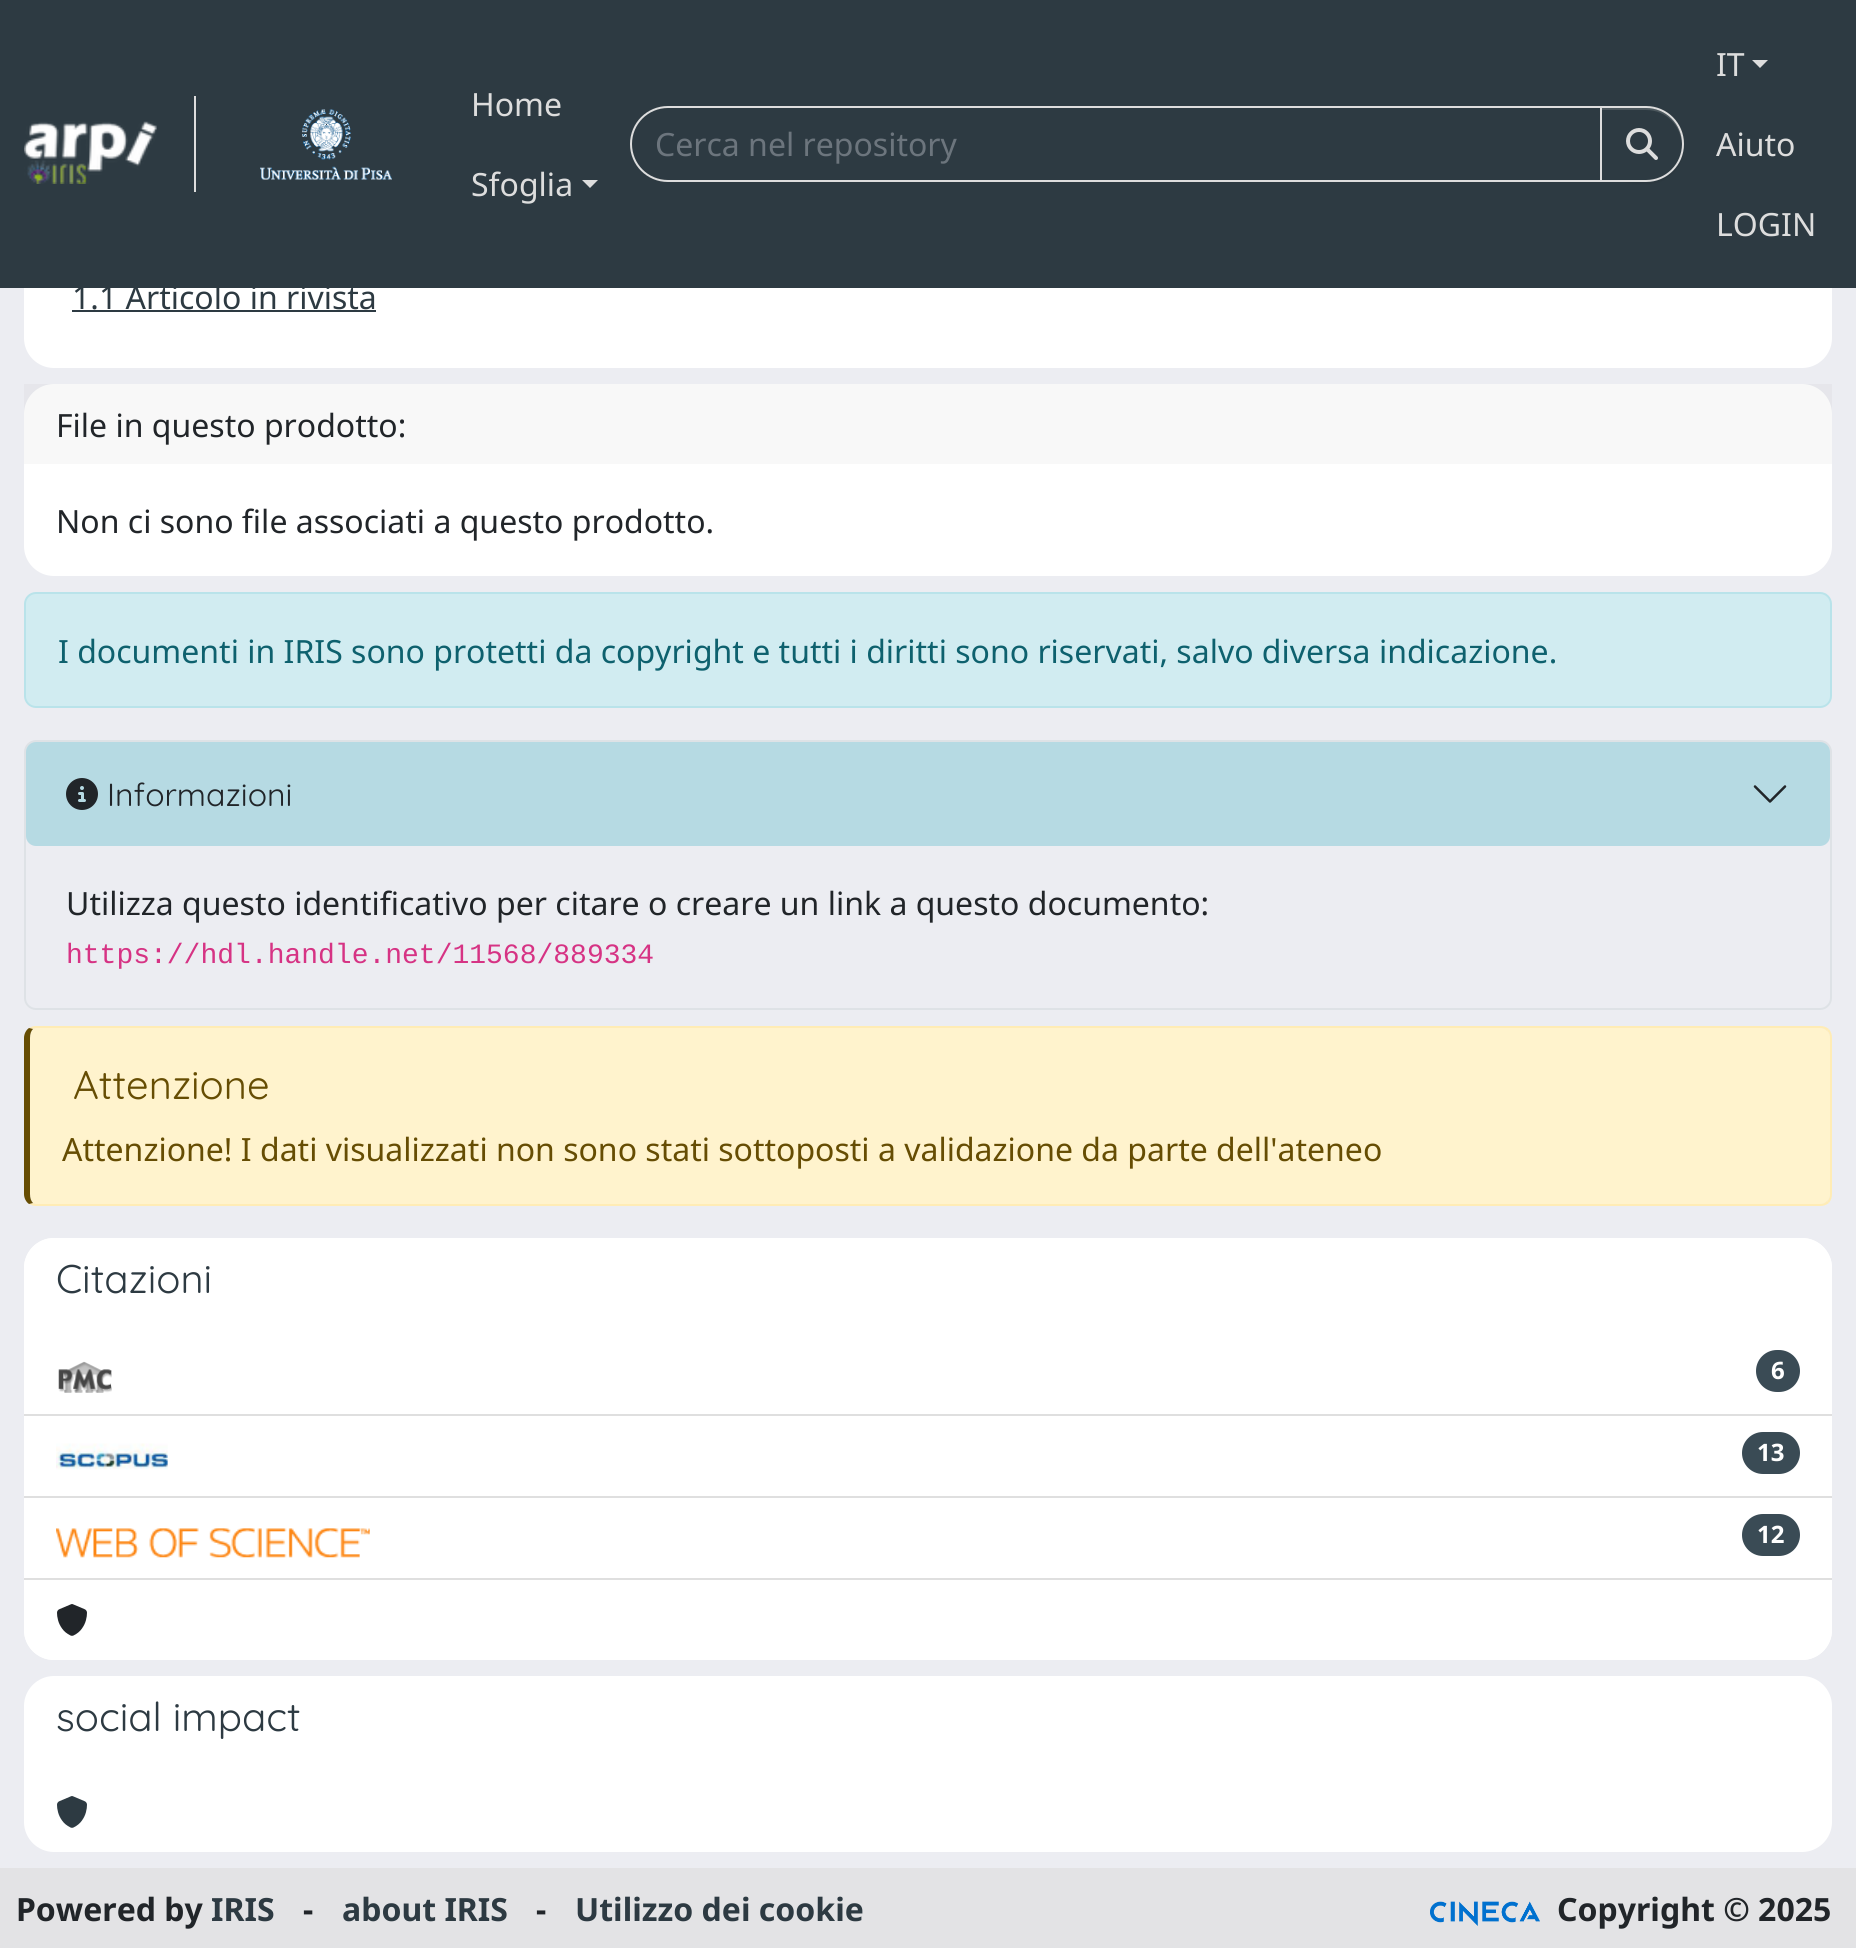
#include <cairo.h>
#include <math.h>
#include <stddef.h>


static void ink(cairo_t *ctx, unsigned color) {
    cairo_set_source_rgb(ctx, (color >> 16) / 255.0, (color >> 8 & 255) / 255.0, (color & 255) / 255.0);
}

static void round_path(cairo_t *ctx, double x, double y, double w, double h, double r) {
    cairo_new_sub_path(ctx);
    cairo_arc(ctx, x + w - r, y + h - r, r, 0, M_PI / 2);
    cairo_arc(ctx, x + r, y + h - r, r, M_PI / 2, M_PI);
    cairo_arc(ctx, x + r, y + r, r, M_PI, 1.5 * M_PI);
    cairo_arc(ctx, x + w - r, y + r, r, 1.5 * M_PI, 2 * M_PI);
    cairo_close_path(ctx);
}

static void blur_box(cairo_t *ctx, double x, double y, double w, double h, double r, double blur, double alpha) {
    cairo_push_group_with_content(ctx, CAIRO_CONTENT_ALPHA);
    cairo_set_operator(ctx, CAIRO_OPERATOR_SOURCE);
    for (int i = 15; i >= -15 && fmin(w, h) + blur * i / 3 > 0; i -= 2) {
        double e = blur * i / 6;
        cairo_set_source_rgba(ctx, 0, 0, 0, alpha * erfc((i - 1) / 8.5) / 2);
        round_path(ctx, x - e, y - e, w + 2 * e, h + 2 * e, fmax(0, fmin(r + e + blur * .6, fmin(w, h) / 2 + e)));
        cairo_fill(ctx);
    }
    cairo_pattern_t *soft = cairo_pop_group(ctx);
    cairo_mask(ctx, soft);
    cairo_pattern_destroy(soft);
}

static void paste(cairo_t *ctx, const char *path, double x, double y, double w, double h) {
    cairo_surface_t *image = cairo_image_surface_create_from_png(path);
    cairo_save(ctx);
    cairo_set_source_surface(ctx, image, x, y);
    cairo_rectangle(ctx, x, y, w, h);
    cairo_fill(ctx);
    cairo_restore(ctx);
    cairo_surface_destroy(image);
}

int main(void) {
    cairo_surface_t *surface = cairo_image_surface_create(CAIRO_FORMAT_RGB24, 1856, 1948);
    cairo_t *ctx = cairo_create(surface);
    cairo_font_options_t *options = cairo_font_options_create();
    cairo_font_options_set_hint_metrics(options, CAIRO_HINT_METRICS_OFF);
    cairo_font_options_set_hint_style(options, CAIRO_HINT_STYLE_NONE);
    cairo_set_font_options(ctx, options);
    cairo_set_miter_limit(ctx, 4);
    ink(ctx, 0xECEDF2);
    cairo_paint(ctx);
    ink(ctx, 0xFFFFFF);
    round_path(ctx, 24, -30, 1808, 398, 30);
    cairo_fill(ctx);
    ink(ctx, 0x2D3A42);
    cairo_rectangle(ctx, 0, 0, 1856, 288);
    cairo_fill(ctx);
    ink(ctx, 0xDDDDDD);
    cairo_rectangle(ctx, 194, 96, 2, 96);
    cairo_fill(ctx);
    paste(ctx, "media/1.png", 24, 121, 133, 63);
    paste(ctx, "media/2.png", 260, 109, 132, 71);
    cairo_select_font_face(ctx, "Noto Sans", CAIRO_FONT_SLANT_NORMAL, CAIRO_FONT_WEIGHT_NORMAL);
    cairo_set_font_size(ctx, 32);
    cairo_move_to(ctx, 471, 116);
    cairo_show_text(ctx, "Home");
    cairo_move_to(ctx, 471, 196);
    cairo_show_text(ctx, "Sfoglia");
    cairo_new_path(ctx);
    cairo_move_to(ctx, 582, 180);
    cairo_line_to(ctx, 598, 180);
    cairo_line_to(ctx, 590, 188);
    cairo_close_path(ctx);
    cairo_fill(ctx);
    cairo_new_path(ctx);
    cairo_move_to(ctx, 668, 107);
    cairo_line_to(ctx, 1601, 107);
    cairo_line_to(ctx, 1601, 181);
    cairo_line_to(ctx, 668, 181);
    cairo_curve_to(ctx, 647.5, 181, 631, 164.5, 631, 144);
    cairo_curve_to(ctx, 631, 123.5, 647.5, 107, 668, 107);
    cairo_close_path(ctx);
    cairo_stroke(ctx);
    ink(ctx, 0x6C757D);
    cairo_move_to(ctx, 655, 156);
    cairo_show_text(ctx, "Cerca nel repository");
    ink(ctx, 0x000000);
    blur_box(ctx, 1600, 108, 84, 76, 38, 1, 0.07);
    ink(ctx, 0x2D3A42);
    cairo_new_path(ctx);
    cairo_move_to(ctx, 1600, 106);
    cairo_line_to(ctx, 1646, 106);
    cairo_curve_to(ctx, 1667, 106, 1684, 123, 1684, 144);
    cairo_curve_to(ctx, 1684, 165, 1667, 182, 1646, 182);
    cairo_line_to(ctx, 1600, 182);
    cairo_close_path(ctx);
    cairo_fill(ctx);
    ink(ctx, 0x4D585E);
    cairo_new_path(ctx);
    cairo_move_to(ctx, 1602, 110);
    cairo_line_to(ctx, 1646, 110);
    cairo_curve_to(ctx, 1666, 110, 1681, 125, 1682, 145);
    cairo_line_to(ctx, 1682, 144);
    cairo_curve_to(ctx, 1682, 124, 1666, 108, 1646, 108);
    cairo_line_to(ctx, 1602, 108);
    cairo_close_path(ctx);
    cairo_fill(ctx);
    cairo_new_path(ctx);
    cairo_move_to(ctx, 1601, 107);
    cairo_line_to(ctx, 1646, 107);
    cairo_curve_to(ctx, 1666.5, 107, 1683, 123.5, 1683, 144);
    cairo_curve_to(ctx, 1683, 164.5, 1666.5, 181, 1646, 181);
    cairo_line_to(ctx, 1601, 181);
    cairo_close_path(ctx);
    ink(ctx, 0xDDDDDD);
    cairo_stroke(ctx);
    paste(ctx, "media/3.png", 1626, 128, 32, 32);
    cairo_move_to(ctx, 1716, 76);
    cairo_show_text(ctx, "IT");
    cairo_new_path(ctx);
    cairo_move_to(ctx, 1752, 60);
    cairo_line_to(ctx, 1768, 60);
    cairo_line_to(ctx, 1760, 68);
    cairo_close_path(ctx);
    cairo_fill(ctx);
    cairo_move_to(ctx, 1716, 156);
    cairo_show_text(ctx, "Aiuto");
    cairo_move_to(ctx, 1716, 236);
    cairo_show_text(ctx, "LOGIN");
    ink(ctx, 0x2D3A42);
    cairo_move_to(ctx, 72, 309);
    cairo_show_text(ctx, "1.1 Articolo in rivista");
    cairo_rectangle(ctx, 72, 310, 304, 2);
    cairo_fill(ctx);
    ink(ctx, 0xFFFFFF);
    round_path(ctx, 24, 384, 1808, 192, 30);
    cairo_fill(ctx);
    cairo_set_source_rgba(ctx, 0, 0, 0, 0.03);
    cairo_rectangle(ctx, 24, 384, 1808, 80);
    cairo_fill(ctx);
    ink(ctx, 0x212529);
    cairo_move_to(ctx, 56, 437);
    cairo_show_text(ctx, "File in questo prodotto:");
    cairo_move_to(ctx, 56, 533);
    cairo_show_text(ctx, "Non ci sono file associati a questo prodotto.");
    ink(ctx, 0xD1ECF1);
    round_path(ctx, 25, 593, 1806, 114, 11);
    cairo_fill_preserve(ctx);
    ink(ctx, 0xB9E3EA);
    cairo_stroke(ctx);
    ink(ctx, 0x0E616E);
    cairo_move_to(ctx, 58, 663);
    cairo_show_text(ctx, "I documenti in IRIS sono protetti da copyright e tutti i diritti sono riservati, salvo diversa indicazione.");
    round_path(ctx, 25, 741, 1806, 268, 11);
    ink(ctx, 0xDEE2E6);
    cairo_stroke(ctx);
    cairo_set_source_rgba(ctx, 0.09, 0.635, 0.722, 0.25);
    round_path(ctx, 26, 742, 1804, 104, 10);
    cairo_fill(ctx);
    paste(ctx, "media/4.png", 66, 778, 32, 32);
    cairo_select_font_face(ctx, "Quicksand", CAIRO_FONT_SLANT_NORMAL, CAIRO_FONT_WEIGHT_NORMAL);
    ink(ctx, 0x212529);
    cairo_move_to(ctx, 107, 806);
    cairo_show_text(ctx, "Informazioni");
    paste(ctx, "media/5.png", 1753, 785, 34, 18);
    cairo_select_font_face(ctx, "Noto Sans", CAIRO_FONT_SLANT_NORMAL, CAIRO_FONT_WEIGHT_NORMAL);
    cairo_move_to(ctx, 66, 915);
    cairo_show_text(ctx, "Utilizza questo identificativo per citare o creare un link a questo documento:");
    cairo_select_font_face(ctx, "Liberation Mono", CAIRO_FONT_SLANT_NORMAL, CAIRO_FONT_WEIGHT_NORMAL);
    cairo_set_font_size(ctx, 28);
    ink(ctx, 0xD63384);
    cairo_move_to(ctx, 66, 963);
    cairo_show_text(ctx, "https://hdl.handle.net/11568/889334");
    ink(ctx, 0xFFF3CD);
    cairo_new_path(ctx);
    cairo_move_to(ctx, 36, 1028);
    cairo_line_to(ctx, 1820, 1028);
    cairo_curve_to(ctx, 1826, 1028, 1830, 1032, 1830, 1038);
    cairo_line_to(ctx, 1830, 1194);
    cairo_curve_to(ctx, 1830, 1200, 1826, 1204, 1820, 1204);
    cairo_line_to(ctx, 36, 1204);
    cairo_curve_to(ctx, 33, 1204, 30, 1200, 30, 1194);
    cairo_line_to(ctx, 30, 1038);
    cairo_curve_to(ctx, 30, 1032, 33, 1028, 36, 1028);
    cairo_close_path(ctx);
    cairo_fill(ctx);
    ink(ctx, 0xFFECB5);
    cairo_new_path(ctx);
    cairo_move_to(ctx, 36, 1026);
    cairo_curve_to(ctx, 33, 1026, 31, 1027, 29, 1028);
    cairo_line_to(ctx, 33, 1029);
    cairo_line_to(ctx, 36, 1028);
    cairo_line_to(ctx, 1820, 1028);
    cairo_curve_to(ctx, 1823, 1028, 1825, 1029, 1827, 1031);
    cairo_line_to(ctx, 1829, 1029);
    cairo_curve_to(ctx, 1826, 1027, 1824, 1026, 1820, 1026);
    cairo_close_path(ctx);
    cairo_fill(ctx);
    cairo_new_path(ctx);
    cairo_move_to(ctx, 1832, 1194);
    cairo_line_to(ctx, 1832, 1038);
    cairo_curve_to(ctx, 1832, 1034, 1831, 1032, 1829, 1029);
    cairo_line_to(ctx, 1827, 1031);
    cairo_curve_to(ctx, 1829, 1032, 1830, 1035, 1830, 1038);
    cairo_line_to(ctx, 1830, 1194);
    cairo_curve_to(ctx, 1830, 1197, 1829, 1200, 1827, 1201);
    cairo_line_to(ctx, 1829, 1203);
    cairo_curve_to(ctx, 1831, 1200, 1832, 1198, 1832, 1194);
    cairo_close_path(ctx);
    cairo_fill(ctx);
    cairo_new_path(ctx);
    cairo_move_to(ctx, 36, 1206);
    cairo_line_to(ctx, 1820, 1206);
    cairo_curve_to(ctx, 1824, 1206, 1826, 1205, 1829, 1203);
    cairo_line_to(ctx, 1827, 1201);
    cairo_curve_to(ctx, 1825, 1203, 1823, 1204, 1820, 1204);
    cairo_line_to(ctx, 36, 1204);
    cairo_line_to(ctx, 33, 1203);
    cairo_line_to(ctx, 29, 1204);
    cairo_curve_to(ctx, 31, 1205, 33, 1206, 36, 1206);
    cairo_close_path(ctx);
    cairo_fill(ctx);
    ink(ctx, 0x664D03);
    cairo_new_path(ctx);
    cairo_move_to(ctx, 24, 1038);
    cairo_line_to(ctx, 24, 1194);
    cairo_curve_to(ctx, 24, 1198, 26, 1202, 29, 1204);
    cairo_line_to(ctx, 33, 1203);
    cairo_curve_to(ctx, 31, 1201, 30, 1198, 30, 1194);
    cairo_line_to(ctx, 30, 1038);
    cairo_curve_to(ctx, 30, 1034, 31, 1031, 33, 1029);
    cairo_line_to(ctx, 29, 1028);
    cairo_curve_to(ctx, 26, 1030, 24, 1034, 24, 1038);
    cairo_close_path(ctx);
    cairo_fill(ctx);
    cairo_select_font_face(ctx, "Quicksand", CAIRO_FONT_SLANT_NORMAL, CAIRO_FONT_WEIGHT_NORMAL);
    cairo_set_font_size(ctx, 40);
    cairo_move_to(ctx, 73, 1099);
    cairo_show_text(ctx, "Attenzione");
    cairo_select_font_face(ctx, "Noto Sans", CAIRO_FONT_SLANT_NORMAL, CAIRO_FONT_WEIGHT_NORMAL);
    cairo_set_font_size(ctx, 32);
    cairo_move_to(ctx, 62, 1161);
    cairo_show_text(ctx, "Attenzione! I dati visualizzati non sono stati sottoposti a validazione da parte dell'ateneo");
    ink(ctx, 0xFFFFFF);
    round_path(ctx, 24, 1238, 1808, 422, 30);
    cairo_fill(ctx);
    cairo_new_path(ctx);
    cairo_move_to(ctx, 54, 1238);
    cairo_line_to(ctx, 1802, 1238);
    cairo_curve_to(ctx, 1818.5, 1238, 1832, 1251.5, 1832, 1268);
    cairo_line_to(ctx, 1832, 1334);
    cairo_line_to(ctx, 24, 1334);
    cairo_line_to(ctx, 24, 1268);
    cairo_curve_to(ctx, 24, 1251.5, 37.5, 1238, 54, 1238);
    cairo_close_path(ctx);
    cairo_fill(ctx);
    cairo_select_font_face(ctx, "Quicksand", CAIRO_FONT_SLANT_NORMAL, CAIRO_FONT_WEIGHT_NORMAL);
    cairo_set_font_size(ctx, 40);
    ink(ctx, 0x2D3A42);
    cairo_move_to(ctx, 56, 1293);
    cairo_show_text(ctx, "Citazioni");
    ink(ctx, 0xDFDFDF);
    cairo_rectangle(ctx, 24, 1414, 1808, 2);
    cairo_fill(ctx);
    paste(ctx, "media/6.png", 58, 1361, 54, 32);
    ink(ctx, 0x3A4B55);
    round_path(ctx, 1756, 1350, 44, 42, 21);
    cairo_fill(ctx);
    cairo_select_font_face(ctx, "Noto Sans", CAIRO_FONT_SLANT_NORMAL, CAIRO_FONT_WEIGHT_BOLD);
    cairo_set_font_size(ctx, 24);
    ink(ctx, 0xFFFFFF);
    cairo_move_to(ctx, 1771, 1379);
    cairo_show_text(ctx, "6");
    ink(ctx, 0xDFDFDF);
    cairo_rectangle(ctx, 24, 1496, 1808, 2);
    cairo_fill(ctx);
    paste(ctx, "media/7.png", 56, 1443, 112, 27);
    ink(ctx, 0x3A4B55);
    round_path(ctx, 1742, 1432, 58, 42, 21);
    cairo_fill(ctx);
    ink(ctx, 0xFFFFFF);
    cairo_move_to(ctx, 1757, 1461);
    cairo_show_text(ctx, "13");
    ink(ctx, 0xDFDFDF);
    cairo_rectangle(ctx, 24, 1578, 1808, 2);
    cairo_fill(ctx);
    paste(ctx, "media/8.png", 56, 1528, 314, 30);
    ink(ctx, 0x3A4B55);
    round_path(ctx, 1742, 1514, 58, 42, 21);
    cairo_fill(ctx);
    ink(ctx, 0xFFFFFF);
    cairo_move_to(ctx, 1757, 1543);
    cairo_show_text(ctx, "12");
    cairo_new_path(ctx);
    cairo_move_to(ctx, 24, 1580);
    cairo_line_to(ctx, 1832, 1580);
    cairo_line_to(ctx, 1832, 1630);
    cairo_curve_to(ctx, 1832, 1646.5, 1818.5, 1660, 1802, 1660);
    cairo_line_to(ctx, 54, 1660);
    cairo_curve_to(ctx, 37.5, 1660, 24, 1646.5, 24, 1630);
    cairo_close_path(ctx);
    cairo_fill(ctx);
    paste(ctx, "media/9.png", 57, 1604, 30, 32);
    cairo_new_path(ctx);
    cairo_move_to(ctx, 54, 1676);
    cairo_line_to(ctx, 1802, 1676);
    cairo_curve_to(ctx, 1818.5, 1676, 1832, 1689.5, 1832, 1706);
    cairo_line_to(ctx, 1832, 1772);
    cairo_line_to(ctx, 24, 1772);
    cairo_line_to(ctx, 24, 1706);
    cairo_curve_to(ctx, 24, 1689.5, 37.5, 1676, 54, 1676);
    cairo_close_path(ctx);
    cairo_fill(ctx);
    cairo_select_font_face(ctx, "Quicksand", CAIRO_FONT_SLANT_NORMAL, CAIRO_FONT_WEIGHT_NORMAL);
    cairo_set_font_size(ctx, 40);
    ink(ctx, 0x2D3A42);
    cairo_move_to(ctx, 56, 1731);
    cairo_show_text(ctx, "social impact");
    ink(ctx, 0xFFFFFF);
    cairo_new_path(ctx);
    cairo_move_to(ctx, 24, 1772);
    cairo_line_to(ctx, 1832, 1772);
    cairo_line_to(ctx, 1832, 1822);
    cairo_curve_to(ctx, 1832, 1838.5, 1818.5, 1852, 1802, 1852);
    cairo_line_to(ctx, 54, 1852);
    cairo_curve_to(ctx, 37.5, 1852, 24, 1838.5, 24, 1822);
    cairo_close_path(ctx);
    cairo_fill(ctx);
    paste(ctx, "media/10.png", 57, 1796, 30, 32);
    ink(ctx, 0xE3E3E5);
    cairo_rectangle(ctx, 0, 1868, 1856, 80);
    cairo_fill(ctx);
    cairo_select_font_face(ctx, "Noto Sans", CAIRO_FONT_SLANT_NORMAL, CAIRO_FONT_WEIGHT_BOLD);
    cairo_set_font_size(ctx, 32);
    ink(ctx, 0x212529);
    cairo_move_to(ctx, 16, 1921);
    cairo_show_text(ctx, "Powered by");
    ink(ctx, 0x2D3A42);
    cairo_move_to(ctx, 211, 1921);
    cairo_show_text(ctx, "IRIS");
    ink(ctx, 0x212529);
    cairo_move_to(ctx, 303, 1921);
    cairo_show_text(ctx, "-");
    ink(ctx, 0x2D3A42);
    cairo_move_to(ctx, 342, 1921);
    cairo_show_text(ctx, "about IRIS");
    ink(ctx, 0x212529);
    cairo_move_to(ctx, 536, 1921);
    cairo_show_text(ctx, "-");
    ink(ctx, 0x2D3A42);
    cairo_move_to(ctx, 575, 1921);
    cairo_show_text(ctx, "Utilizzo dei cookie");
    paste(ctx, "media/11.png", 1430, 1901, 110, 25);
    ink(ctx, 0x212529);
    cairo_move_to(ctx, 1557, 1921);
    cairo_show_text(ctx, "Copyright © 2025");
    cairo_surface_write_to_png(surface, "image.png");
    cairo_font_options_destroy(options);
    cairo_destroy(ctx);
    cairo_surface_destroy(surface);
    return 0;
}
